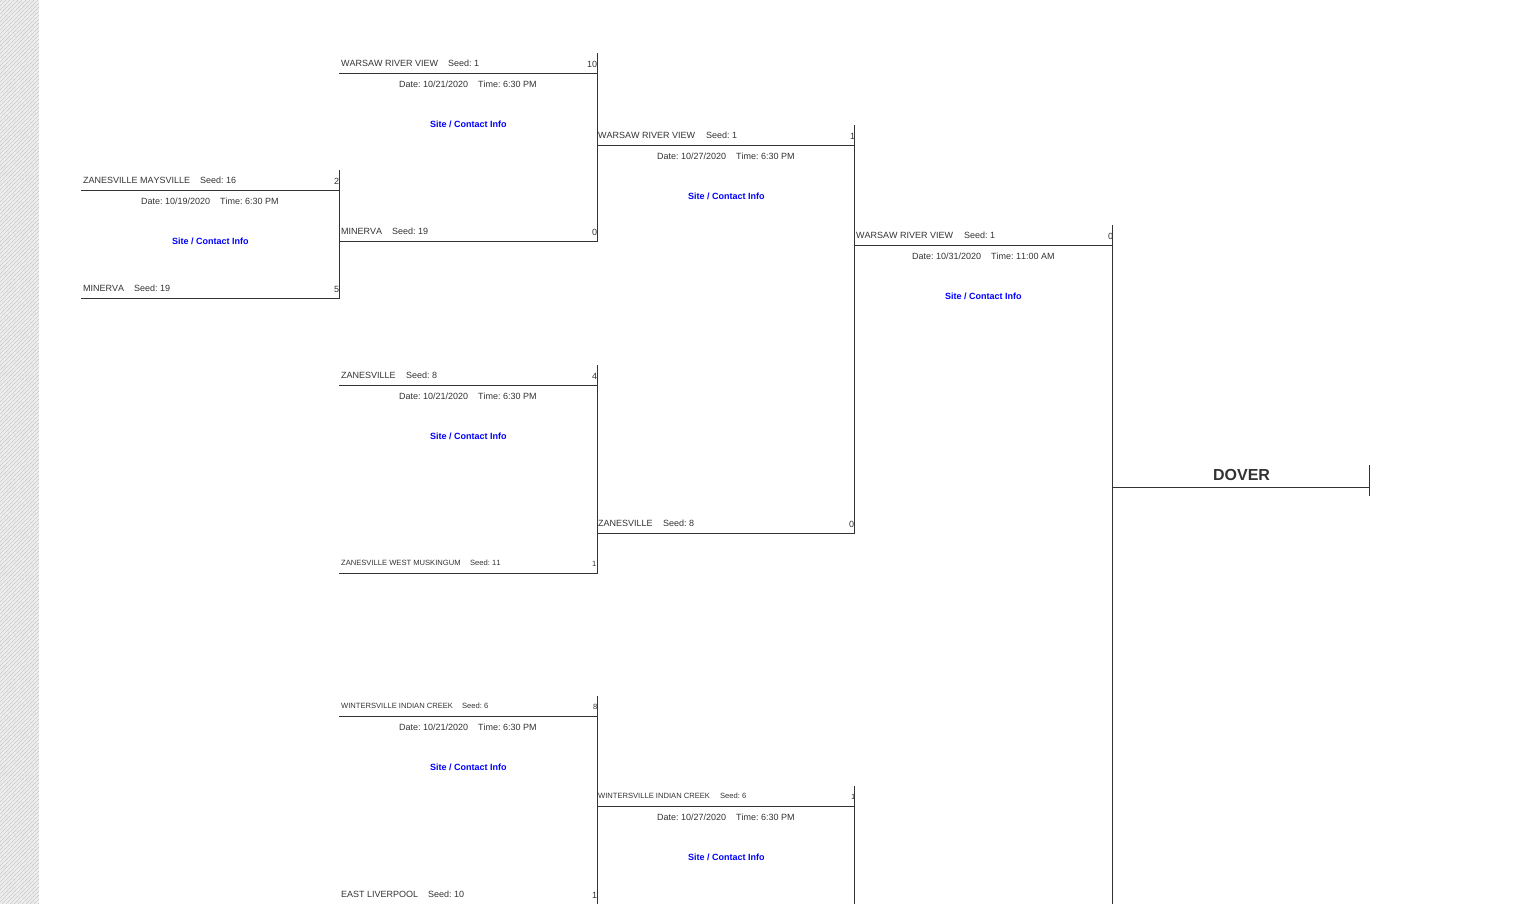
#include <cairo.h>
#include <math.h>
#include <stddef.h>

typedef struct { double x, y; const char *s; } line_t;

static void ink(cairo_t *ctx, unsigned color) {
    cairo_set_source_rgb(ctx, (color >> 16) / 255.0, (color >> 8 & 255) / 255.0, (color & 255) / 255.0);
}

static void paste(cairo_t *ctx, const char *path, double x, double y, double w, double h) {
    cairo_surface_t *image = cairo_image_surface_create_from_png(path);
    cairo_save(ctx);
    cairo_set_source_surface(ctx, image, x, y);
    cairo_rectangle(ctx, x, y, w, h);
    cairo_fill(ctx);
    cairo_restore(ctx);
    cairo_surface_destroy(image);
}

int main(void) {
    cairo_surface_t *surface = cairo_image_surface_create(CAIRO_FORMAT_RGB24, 1517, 904);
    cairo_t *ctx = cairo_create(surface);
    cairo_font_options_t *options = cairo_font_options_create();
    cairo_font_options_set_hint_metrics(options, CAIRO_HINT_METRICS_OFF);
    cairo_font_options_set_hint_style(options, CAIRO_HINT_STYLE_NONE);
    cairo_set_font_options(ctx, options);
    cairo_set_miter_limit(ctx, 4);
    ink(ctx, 0xFFFFFF);
    cairo_paint(ctx);
    paste(ctx, "media/1.png", 0, 0, 39, 904);
    ink(ctx, 0x333333);
    cairo_rectangle(ctx, 339, 170, 1, 129);
    cairo_fill(ctx);
    cairo_rectangle(ctx, 81, 190, 259, 1);
    cairo_fill(ctx);
    cairo_select_font_face(ctx, "Liberation Sans", CAIRO_FONT_SLANT_NORMAL, CAIRO_FONT_WEIGHT_NORMAL);
    cairo_set_font_size(ctx, 9);
    {
        static const line_t items[] = {
            {83, 183, "ZANESVILLE MAYSVILLE"},
            {200, 183, "Seed: 16"},
            {334, 184, "2"},
            {141, 204, "Date: 10/19/2020    Time: 6:30 PM"},
        };
        for (size_t i = 0; i < sizeof items / sizeof *items; i++) {
            cairo_move_to(ctx, items[i].x, items[i].y);
            cairo_show_text(ctx, items[i].s);
        }
    }
    cairo_select_font_face(ctx, "Liberation Sans", CAIRO_FONT_SLANT_NORMAL, CAIRO_FONT_WEIGHT_BOLD);
    ink(ctx, 0x0000FF);
    cairo_move_to(ctx, 172, 244);
    cairo_show_text(ctx, "Site / Contact Info");
    ink(ctx, 0x333333);
    cairo_rectangle(ctx, 81, 298, 259, 1);
    cairo_fill(ctx);
    cairo_select_font_face(ctx, "Liberation Sans", CAIRO_FONT_SLANT_NORMAL, CAIRO_FONT_WEIGHT_NORMAL);
    {
        static const line_t items[] = {
            {83, 291, "MINERVA"},
            {134, 291, "Seed: 19"},
            {334, 292, "5"},
        };
        for (size_t i = 0; i < sizeof items / sizeof *items; i++) {
            cairo_move_to(ctx, items[i].x, items[i].y);
            cairo_show_text(ctx, items[i].s);
        }
    }
    cairo_rectangle(ctx, 597, 53, 1, 189);
    cairo_fill(ctx);
    cairo_rectangle(ctx, 339, 73, 259, 1);
    cairo_fill(ctx);
    {
        static const line_t items[] = {
            {341, 66, "WARSAW RIVER VIEW"},
            {448, 66, "Seed: 1"},
            {587, 67, "10"},
            {399, 87, "Date: 10/21/2020    Time: 6:30 PM"},
        };
        for (size_t i = 0; i < sizeof items / sizeof *items; i++) {
            cairo_move_to(ctx, items[i].x, items[i].y);
            cairo_show_text(ctx, items[i].s);
        }
    }
    cairo_select_font_face(ctx, "Liberation Sans", CAIRO_FONT_SLANT_NORMAL, CAIRO_FONT_WEIGHT_BOLD);
    ink(ctx, 0x0000FF);
    cairo_move_to(ctx, 430, 127);
    cairo_show_text(ctx, "Site / Contact Info");
    ink(ctx, 0x333333);
    cairo_rectangle(ctx, 339, 241, 259, 1);
    cairo_fill(ctx);
    cairo_select_font_face(ctx, "Liberation Sans", CAIRO_FONT_SLANT_NORMAL, CAIRO_FONT_WEIGHT_NORMAL);
    {
        static const line_t items[] = {
            {341, 234, "MINERVA"},
            {392, 234, "Seed: 19"},
            {592, 235, "0"},
        };
        for (size_t i = 0; i < sizeof items / sizeof *items; i++) {
            cairo_move_to(ctx, items[i].x, items[i].y);
            cairo_show_text(ctx, items[i].s);
        }
    }
    cairo_rectangle(ctx, 597, 365, 1, 209);
    cairo_fill(ctx);
    cairo_rectangle(ctx, 339, 385, 259, 1);
    cairo_fill(ctx);
    {
        static const line_t items[] = {
            {341, 378, "ZANESVILLE"},
            {406, 378, "Seed: 8"},
            {592, 379, "4"},
            {399, 399, "Date: 10/21/2020    Time: 6:30 PM"},
        };
        for (size_t i = 0; i < sizeof items / sizeof *items; i++) {
            cairo_move_to(ctx, items[i].x, items[i].y);
            cairo_show_text(ctx, items[i].s);
        }
    }
    cairo_select_font_face(ctx, "Liberation Sans", CAIRO_FONT_SLANT_NORMAL, CAIRO_FONT_WEIGHT_BOLD);
    ink(ctx, 0x0000FF);
    cairo_move_to(ctx, 430, 439);
    cairo_show_text(ctx, "Site / Contact Info");
    ink(ctx, 0x333333);
    cairo_rectangle(ctx, 339, 573, 259, 1);
    cairo_fill(ctx);
    cairo_select_font_face(ctx, "Liberation Sans", CAIRO_FONT_SLANT_NORMAL, CAIRO_FONT_WEIGHT_NORMAL);
    cairo_set_font_size(ctx, 7.6);
    {
        static const line_t items[] = {
            {341, 565, "ZANESVILLE WEST MUSKINGUM"},
            {470, 565, "Seed: 11"},
            {592, 566, "1"},
        };
        for (size_t i = 0; i < sizeof items / sizeof *items; i++) {
            cairo_move_to(ctx, items[i].x, items[i].y);
            cairo_show_text(ctx, items[i].s);
        }
    }
    cairo_rectangle(ctx, 597, 696, 1, 208);
    cairo_fill(ctx);
    cairo_rectangle(ctx, 339, 716, 259, 1);
    cairo_fill(ctx);
    {
        static const line_t items[] = {
            {341, 708, "WINTERSVILLE INDIAN CREEK"},
            {462, 708, "Seed: 6"},
            {593, 709, "8"},
        };
        for (size_t i = 0; i < sizeof items / sizeof *items; i++) {
            cairo_move_to(ctx, items[i].x, items[i].y);
            cairo_show_text(ctx, items[i].s);
        }
    }
    cairo_set_font_size(ctx, 9);
    cairo_move_to(ctx, 399, 730);
    cairo_show_text(ctx, "Date: 10/21/2020    Time: 6:30 PM");
    cairo_select_font_face(ctx, "Liberation Sans", CAIRO_FONT_SLANT_NORMAL, CAIRO_FONT_WEIGHT_BOLD);
    ink(ctx, 0x0000FF);
    cairo_move_to(ctx, 430, 770);
    cairo_show_text(ctx, "Site / Contact Info");
    cairo_select_font_face(ctx, "Liberation Sans", CAIRO_FONT_SLANT_NORMAL, CAIRO_FONT_WEIGHT_NORMAL);
    ink(ctx, 0x333333);
    {
        static const line_t items[] = {
            {341, 897, "EAST LIVERPOOL"},
            {428, 897, "Seed: 10"},
            {592, 898, "1"},
        };
        for (size_t i = 0; i < sizeof items / sizeof *items; i++) {
            cairo_move_to(ctx, items[i].x, items[i].y);
            cairo_show_text(ctx, items[i].s);
        }
    }
    cairo_rectangle(ctx, 854, 125, 1, 409);
    cairo_fill(ctx);
    cairo_rectangle(ctx, 597, 145, 258, 1);
    cairo_fill(ctx);
    {
        static const line_t items[] = {
            {598, 138, "WARSAW RIVER VIEW"},
            {706, 138, "Seed: 1"},
            {850, 139, "1"},
            {657, 159, "Date: 10/27/2020    Time: 6:30 PM"},
        };
        for (size_t i = 0; i < sizeof items / sizeof *items; i++) {
            cairo_move_to(ctx, items[i].x, items[i].y);
            cairo_show_text(ctx, items[i].s);
        }
    }
    cairo_select_font_face(ctx, "Liberation Sans", CAIRO_FONT_SLANT_NORMAL, CAIRO_FONT_WEIGHT_BOLD);
    ink(ctx, 0x0000FF);
    cairo_move_to(ctx, 688, 199);
    cairo_show_text(ctx, "Site / Contact Info");
    ink(ctx, 0x333333);
    cairo_rectangle(ctx, 597, 533, 258, 1);
    cairo_fill(ctx);
    cairo_select_font_face(ctx, "Liberation Sans", CAIRO_FONT_SLANT_NORMAL, CAIRO_FONT_WEIGHT_NORMAL);
    {
        static const line_t items[] = {
            {598, 526, "ZANESVILLE"},
            {663, 526, "Seed: 8"},
            {849, 527, "0"},
        };
        for (size_t i = 0; i < sizeof items / sizeof *items; i++) {
            cairo_move_to(ctx, items[i].x, items[i].y);
            cairo_show_text(ctx, items[i].s);
        }
    }
    cairo_rectangle(ctx, 854, 786, 1, 118);
    cairo_fill(ctx);
    cairo_rectangle(ctx, 597, 806, 258, 1);
    cairo_fill(ctx);
    cairo_set_font_size(ctx, 7.6);
    {
        static const line_t items[] = {
            {598, 798, "WINTERSVILLE INDIAN CREEK"},
            {720, 798, "Seed: 6"},
            {851, 799, "1"},
        };
        for (size_t i = 0; i < sizeof items / sizeof *items; i++) {
            cairo_move_to(ctx, items[i].x, items[i].y);
            cairo_show_text(ctx, items[i].s);
        }
    }
    cairo_set_font_size(ctx, 9);
    cairo_move_to(ctx, 657, 820);
    cairo_show_text(ctx, "Date: 10/27/2020    Time: 6:30 PM");
    cairo_select_font_face(ctx, "Liberation Sans", CAIRO_FONT_SLANT_NORMAL, CAIRO_FONT_WEIGHT_BOLD);
    ink(ctx, 0x0000FF);
    cairo_move_to(ctx, 688, 860);
    cairo_show_text(ctx, "Site / Contact Info");
    ink(ctx, 0x333333);
    cairo_rectangle(ctx, 1112, 225, 1, 679);
    cairo_fill(ctx);
    cairo_rectangle(ctx, 855, 245, 258, 1);
    cairo_fill(ctx);
    cairo_select_font_face(ctx, "Liberation Sans", CAIRO_FONT_SLANT_NORMAL, CAIRO_FONT_WEIGHT_NORMAL);
    {
        static const line_t items[] = {
            {856, 238, "WARSAW RIVER VIEW"},
            {964, 238, "Seed: 1"},
            {1108, 239, "0"},
            {912, 259, "Date: 10/31/2020    Time: 11:00 AM"},
        };
        for (size_t i = 0; i < sizeof items / sizeof *items; i++) {
            cairo_move_to(ctx, items[i].x, items[i].y);
            cairo_show_text(ctx, items[i].s);
        }
    }
    cairo_select_font_face(ctx, "Liberation Sans", CAIRO_FONT_SLANT_NORMAL, CAIRO_FONT_WEIGHT_BOLD);
    ink(ctx, 0x0000FF);
    cairo_move_to(ctx, 945, 299);
    cairo_show_text(ctx, "Site / Contact Info");
    ink(ctx, 0x333333);
    cairo_rectangle(ctx, 1369, 465, 1, 31);
    cairo_fill(ctx);
    cairo_rectangle(ctx, 1112, 487, 258, 1);
    cairo_fill(ctx);
    cairo_set_font_size(ctx, 16);
    cairo_move_to(ctx, 1213, 480);
    cairo_show_text(ctx, "DOVER");
    cairo_surface_write_to_png(surface, "image.png");
    cairo_font_options_destroy(options);
    cairo_destroy(ctx);
    cairo_surface_destroy(surface);
    return 0;
}
